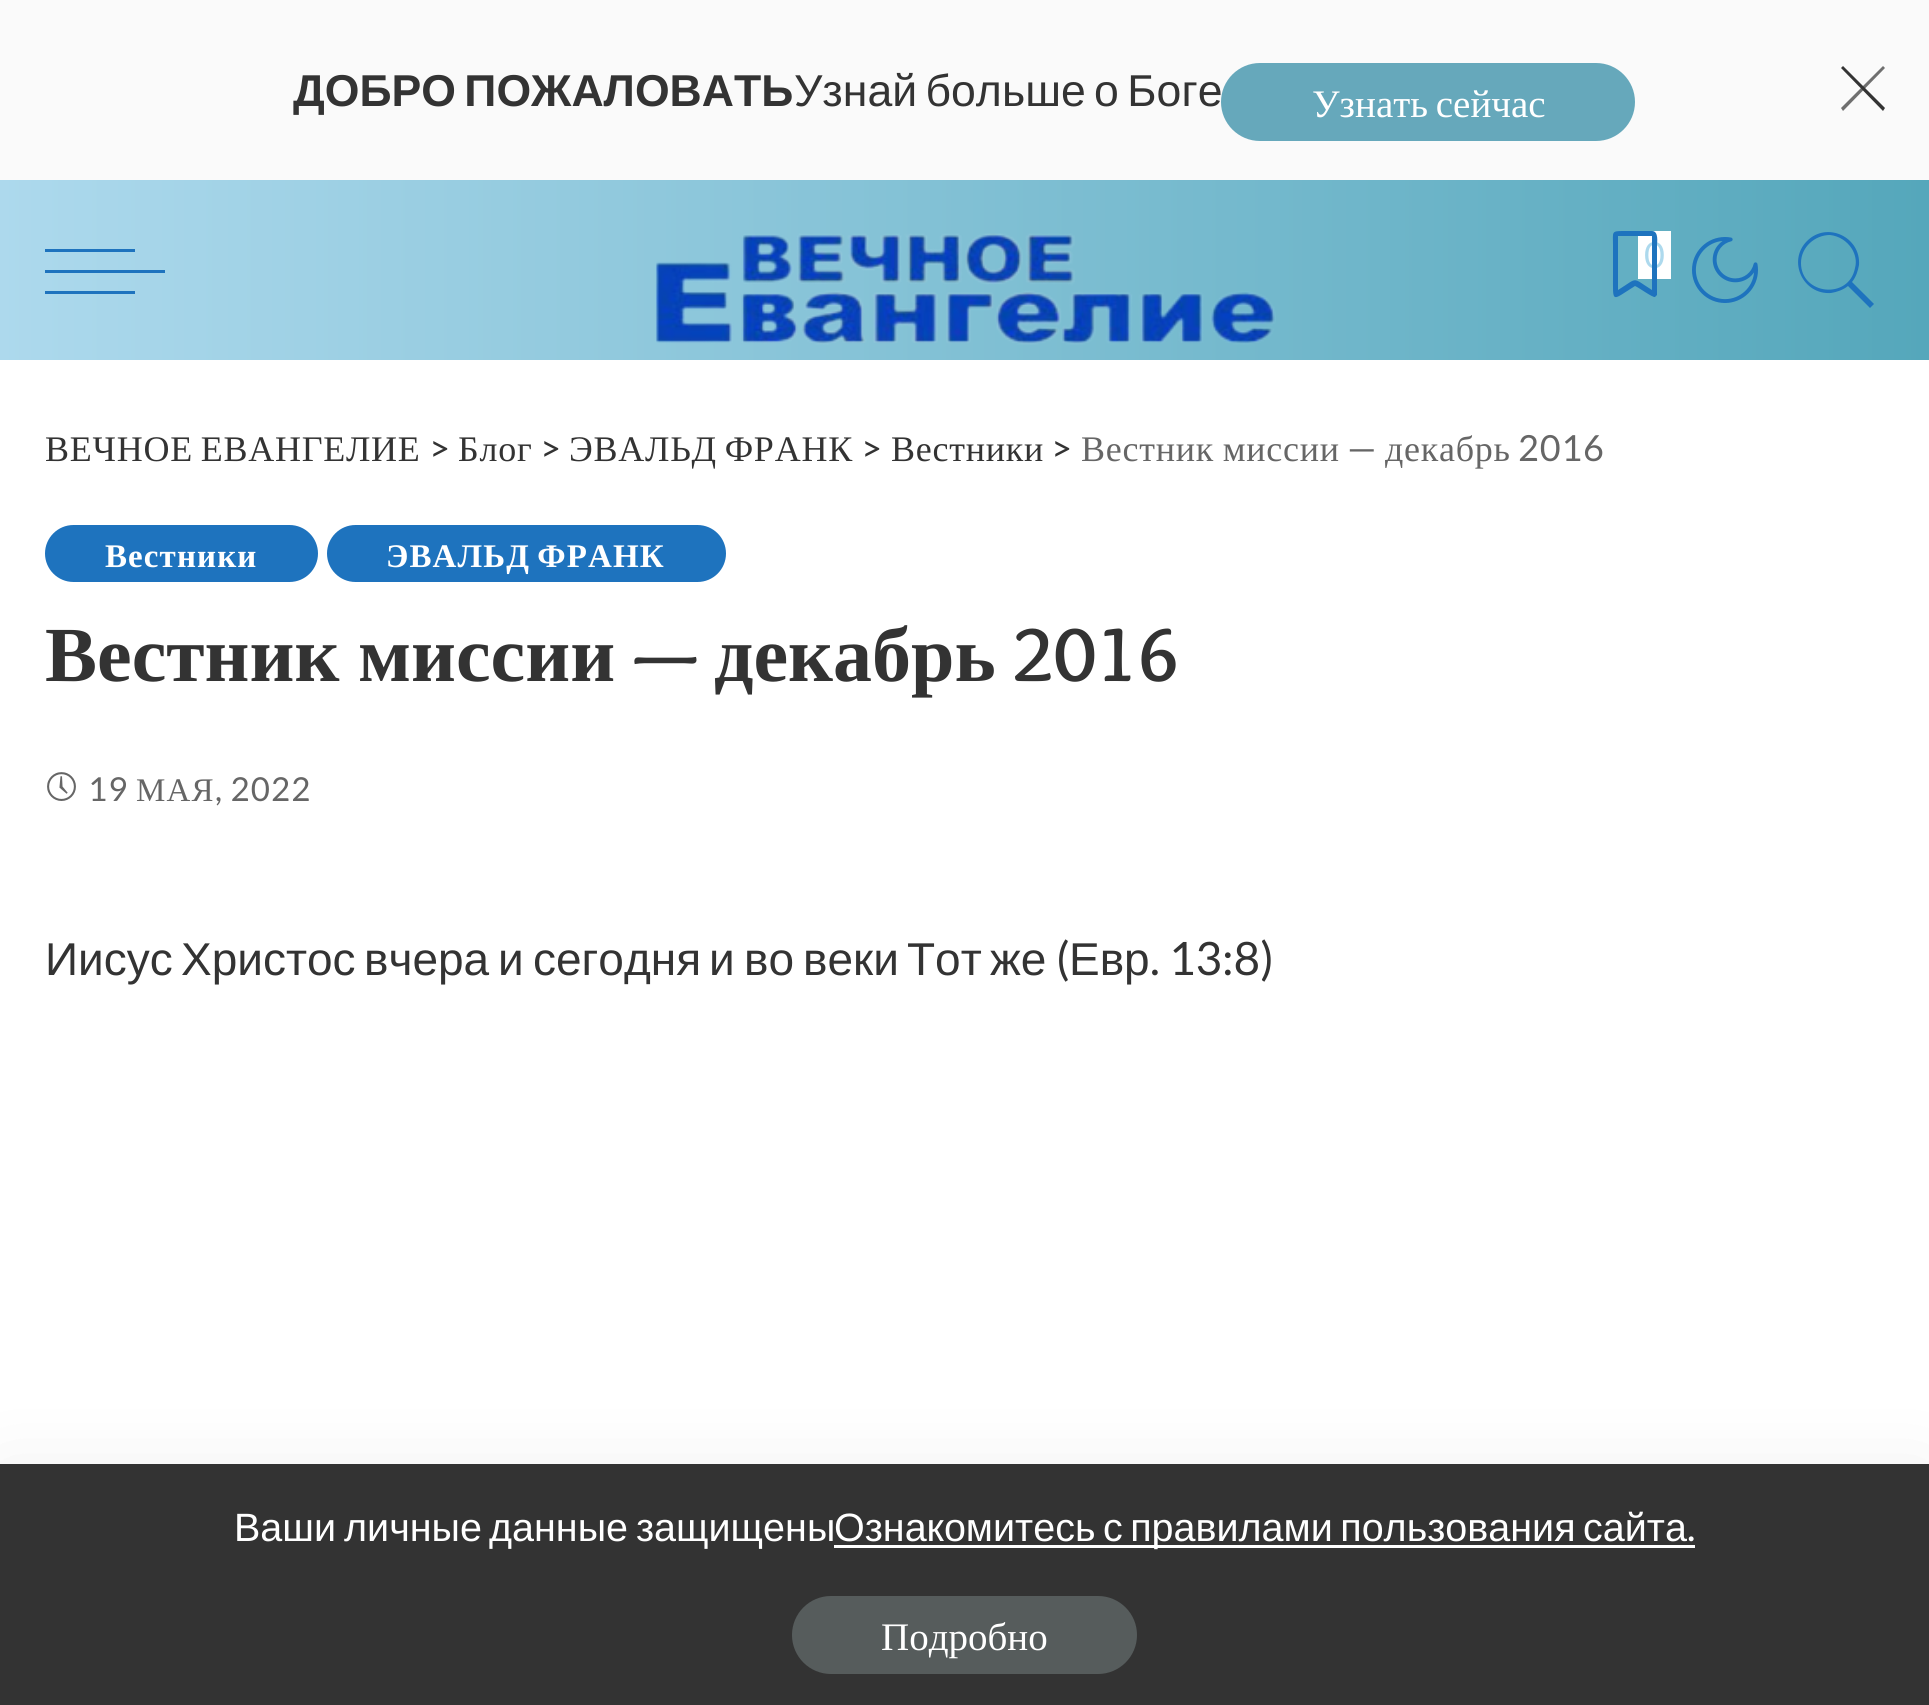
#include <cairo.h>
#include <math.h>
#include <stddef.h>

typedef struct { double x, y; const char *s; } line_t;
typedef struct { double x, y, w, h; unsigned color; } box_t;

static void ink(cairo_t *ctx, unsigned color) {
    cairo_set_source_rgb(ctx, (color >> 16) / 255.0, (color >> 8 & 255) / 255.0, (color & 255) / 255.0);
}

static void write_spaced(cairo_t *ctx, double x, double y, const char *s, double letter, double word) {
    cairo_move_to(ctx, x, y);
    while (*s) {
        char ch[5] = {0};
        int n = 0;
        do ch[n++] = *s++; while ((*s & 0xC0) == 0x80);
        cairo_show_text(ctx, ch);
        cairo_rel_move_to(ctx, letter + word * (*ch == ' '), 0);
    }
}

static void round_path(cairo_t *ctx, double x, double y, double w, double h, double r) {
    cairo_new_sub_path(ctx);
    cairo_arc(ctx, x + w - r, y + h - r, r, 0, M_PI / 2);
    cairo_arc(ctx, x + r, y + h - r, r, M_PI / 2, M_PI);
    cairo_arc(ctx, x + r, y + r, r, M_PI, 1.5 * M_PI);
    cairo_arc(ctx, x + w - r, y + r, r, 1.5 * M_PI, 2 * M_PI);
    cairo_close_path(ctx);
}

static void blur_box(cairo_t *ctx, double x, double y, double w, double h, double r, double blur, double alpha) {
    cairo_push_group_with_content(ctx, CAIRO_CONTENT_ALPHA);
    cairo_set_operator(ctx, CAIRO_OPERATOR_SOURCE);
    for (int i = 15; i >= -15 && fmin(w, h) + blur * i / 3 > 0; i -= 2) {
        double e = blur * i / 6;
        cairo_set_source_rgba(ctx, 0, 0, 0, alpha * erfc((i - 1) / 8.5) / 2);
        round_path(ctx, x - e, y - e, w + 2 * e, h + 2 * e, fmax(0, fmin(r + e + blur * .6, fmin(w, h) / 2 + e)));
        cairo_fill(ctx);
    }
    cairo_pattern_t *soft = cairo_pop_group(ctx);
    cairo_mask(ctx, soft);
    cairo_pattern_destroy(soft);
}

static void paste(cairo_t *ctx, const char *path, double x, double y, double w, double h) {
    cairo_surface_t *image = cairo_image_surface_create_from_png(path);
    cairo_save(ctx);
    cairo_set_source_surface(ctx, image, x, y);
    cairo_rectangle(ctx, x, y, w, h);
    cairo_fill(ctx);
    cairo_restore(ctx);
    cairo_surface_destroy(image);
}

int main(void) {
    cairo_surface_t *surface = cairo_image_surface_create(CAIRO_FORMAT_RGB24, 1929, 1705);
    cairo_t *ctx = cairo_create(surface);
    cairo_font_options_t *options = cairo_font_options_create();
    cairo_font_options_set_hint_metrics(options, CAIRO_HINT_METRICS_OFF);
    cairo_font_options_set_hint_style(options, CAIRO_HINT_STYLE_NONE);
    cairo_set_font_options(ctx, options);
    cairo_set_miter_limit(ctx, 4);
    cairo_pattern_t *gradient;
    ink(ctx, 0xFFFFFF);
    cairo_paint(ctx);
    ink(ctx, 0xFAFAFA);
    cairo_rectangle(ctx, 0, 0, 1929, 180);
    cairo_fill(ctx);
    cairo_select_font_face(ctx, "Liberation Sans", CAIRO_FONT_SLANT_NORMAL, CAIRO_FONT_WEIGHT_BOLD);
    cairo_set_font_size(ctx, 44.6);
    ink(ctx, 0x333333);
    write_spaced(ctx, 293, 106, "ДОБРО ПОЖАЛОВАТЬ", 0, -4);
    cairo_select_font_face(ctx, "Liberation Sans", CAIRO_FONT_SLANT_NORMAL, CAIRO_FONT_WEIGHT_NORMAL);
    write_spaced(ctx, 794, 106, "Узнай больше о Боге", 0, -4);
    ink(ctx, 0x66A8BB);
    round_path(ctx, 1221, 63, 414, 78, 39);
    cairo_fill(ctx);
    cairo_select_font_face(ctx, "Liberation Serif", CAIRO_FONT_SLANT_NORMAL, CAIRO_FONT_WEIGHT_NORMAL);
    cairo_set_font_size(ctx, 39);
    ink(ctx, 0xFFFFFF);
    write_spaced(ctx, 1312, 117, "Узнать сейчас", 0, -2);
    ink(ctx, 0x6F6F6F);
    cairo_new_path(ctx);
    cairo_move_to(ctx, 1841, 108);
    cairo_line_to(ctx, 1883, 66);
    cairo_line_to(ctx, 1885, 68);
    cairo_line_to(ctx, 1843, 111);
    cairo_close_path(ctx);
    cairo_fill(ctx);
    ink(ctx, 0x333333);
    cairo_new_path(ctx);
    cairo_move_to(ctx, 1843, 66);
    cairo_line_to(ctx, 1885, 108);
    cairo_line_to(ctx, 1883, 111);
    cairo_line_to(ctx, 1841, 68);
    cairo_close_path(ctx);
    cairo_fill(ctx);
    gradient = cairo_pattern_create_linear(0, 270, 1929, 270);
    cairo_pattern_add_color_stop_rgba(gradient, 0, 0.678, 0.851, 0.929, 1);
    cairo_pattern_add_color_stop_rgba(gradient, 1, 0.333, 0.655, 0.733, 1);
    cairo_set_source(ctx, gradient);
    cairo_pattern_destroy(gradient);
    cairo_rectangle(ctx, 0, 180, 1929, 180);
    cairo_fill(ctx);
    {
        static const box_t items[] = {
            {45, 270, 120, 3, 0x1E73BE},
            {45, 249, 90, 3, 0x1E73BE},
            {45, 291, 90, 3, 0x1E73BE},
        };
        for (size_t i = 0; i < sizeof items / sizeof *items; i++) {
            ink(ctx, items[i].color);
            cairo_rectangle(ctx, items[i].x, items[i].y, items[i].w, items[i].h);
            cairo_fill(ctx);
        }
    }
    paste(ctx, "media/1.png", 655, 233, 621, 112);
    ink(ctx, 0xFFFFFF);
    cairo_rectangle(ctx, 1638, 231, 33, 48);
    cairo_fill(ctx);
    cairo_select_font_face(ctx, "Lato", CAIRO_FONT_SLANT_NORMAL, CAIRO_FONT_WEIGHT_NORMAL);
    cairo_set_font_size(ctx, 36);
    ink(ctx, 0xADD9ED);
    cairo_move_to(ctx, 1644, 268);
    cairo_show_text(ctx, "0");
    ink(ctx, 0x1E73BE);
    cairo_new_path(ctx);
    cairo_move_to(ctx, 1652, 231);
    cairo_line_to(ctx, 1623, 231);
    cairo_curve_to(ctx, 1611, 231, 1613, 232, 1613, 245);
    cairo_line_to(ctx, 1613, 275);
    cairo_curve_to(ctx, 1613, 304, 1611, 301, 1635, 286);
    cairo_curve_to(ctx, 1638, 287, 1653, 298, 1655, 297);
    cairo_line_to(ctx, 1657, 295);
    cairo_line_to(ctx, 1657, 245);
    cairo_curve_to(ctx, 1657, 243, 1659, 231, 1652, 231);
    cairo_close_path(ctx);
    cairo_move_to(ctx, 1652, 290);
    cairo_curve_to(ctx, 1631, 277, 1639, 277, 1618, 290);
    cairo_line_to(ctx, 1618, 236);
    cairo_line_to(ctx, 1652, 236);
    cairo_close_path(ctx);
    cairo_fill(ctx);
    paste(ctx, "media/2.png", 1692, 237, 66, 66);
    cairo_new_path(ctx);
    cairo_move_to(ctx, 1874, 304);
    cairo_line_to(ctx, 1852, 282);
    cairo_curve_to(ctx, 1856, 277, 1858, 271, 1859, 265);
    cairo_curve_to(ctx, 1861, 237, 1827, 221, 1807, 241);
    cairo_curve_to(ctx, 1787, 261, 1803, 295, 1831, 293);
    cairo_curve_to(ctx, 1837, 292, 1843, 290, 1848, 286);
    cairo_line_to(ctx, 1870, 308);
    cairo_close_path(ctx);
    cairo_move_to(ctx, 1801, 263);
    cairo_curve_to(ctx, 1801, 247, 1815, 235, 1830, 235);
    cairo_curve_to(ctx, 1839, 236, 1847, 241, 1852, 249);
    cairo_curve_to(ctx, 1855, 254, 1857, 261, 1855, 268);
    cairo_curve_to(ctx, 1849, 300, 1801, 295, 1801, 263);
    cairo_close_path(ctx);
    cairo_fill(ctx);
    cairo_select_font_face(ctx, "Liberation Serif", CAIRO_FONT_SLANT_NORMAL, CAIRO_FONT_WEIGHT_NORMAL);
    ink(ctx, 0x333333);
    write_spaced(ctx, 45, 461, "ВЕЧНОЕ ЕВАНГЕЛИЕ", 0.75, -2);
    cairo_select_font_face(ctx, "Lato", CAIRO_FONT_SLANT_NORMAL, CAIRO_FONT_WEIGHT_NORMAL);
    write_spaced(ctx, 429, 461, ">", 0.75, 0);
    cairo_select_font_face(ctx, "Liberation Serif", CAIRO_FONT_SLANT_NORMAL, CAIRO_FONT_WEIGHT_NORMAL);
    write_spaced(ctx, 458, 461, "Блог", 0.75, 0);
    cairo_select_font_face(ctx, "Lato", CAIRO_FONT_SLANT_NORMAL, CAIRO_FONT_WEIGHT_NORMAL);
    write_spaced(ctx, 540, 461, ">", 0.75, 0);
    cairo_select_font_face(ctx, "Liberation Serif", CAIRO_FONT_SLANT_NORMAL, CAIRO_FONT_WEIGHT_NORMAL);
    write_spaced(ctx, 569, 461, "ЭВАЛЬД ФРАНК", 0.75, -2);
    cairo_select_font_face(ctx, "Lato", CAIRO_FONT_SLANT_NORMAL, CAIRO_FONT_WEIGHT_NORMAL);
    write_spaced(ctx, 861, 461, ">", 0.75, 0);
    cairo_select_font_face(ctx, "Liberation Serif", CAIRO_FONT_SLANT_NORMAL, CAIRO_FONT_WEIGHT_NORMAL);
    write_spaced(ctx, 891, 461, "Вестники", 0.75, 0);
    cairo_select_font_face(ctx, "Lato", CAIRO_FONT_SLANT_NORMAL, CAIRO_FONT_WEIGHT_NORMAL);
    write_spaced(ctx, 1051, 461, ">", 0.75, 0);
    cairo_select_font_face(ctx, "Liberation Serif", CAIRO_FONT_SLANT_NORMAL, CAIRO_FONT_WEIGHT_NORMAL);
    ink(ctx, 0x666666);
    write_spaced(ctx, 1081, 461, "Вестник миссии", 0.75, -1);
    cairo_select_font_face(ctx, "Lato", CAIRO_FONT_SLANT_NORMAL, CAIRO_FONT_WEIGHT_NORMAL);
    write_spaced(ctx, 1347, 461, "—", 0.75, 0);
    cairo_select_font_face(ctx, "Liberation Serif", CAIRO_FONT_SLANT_NORMAL, CAIRO_FONT_WEIGHT_NORMAL);
    write_spaced(ctx, 1385, 461, "декабрь", 0.75, 0);
    cairo_select_font_face(ctx, "Lato", CAIRO_FONT_SLANT_NORMAL, CAIRO_FONT_WEIGHT_NORMAL);
    write_spaced(ctx, 1518, 461, "2016", 0.75, 0);
    ink(ctx, 0x1E73BE);
    round_path(ctx, 45, 525, 273, 57, 28.5);
    cairo_fill(ctx);
    cairo_select_font_face(ctx, "Liberation Serif", CAIRO_FONT_SLANT_NORMAL, CAIRO_FONT_WEIGHT_BOLD);
    cairo_set_font_size(ctx, 33);
    ink(ctx, 0xFFFFFF);
    write_spaced(ctx, 105, 567, "Вестники", 1.1, 0);
    ink(ctx, 0x1E73BE);
    round_path(ctx, 327, 525, 399, 57, 28.5);
    cairo_fill(ctx);
    ink(ctx, 0xFFFFFF);
    write_spaced(ctx, 386, 567, "ЭВАЛЬД ФРАНК", 1.1, -2);
    cairo_set_font_size(ctx, 78);
    ink(ctx, 0x333333);
    write_spaced(ctx, 45, 681, "Вестник миссии", 0, -1);
    cairo_select_font_face(ctx, "Overlock", CAIRO_FONT_SLANT_NORMAL, CAIRO_FONT_WEIGHT_BOLD);
    cairo_move_to(ctx, 632, 681);
    cairo_show_text(ctx, "—");
    cairo_select_font_face(ctx, "Liberation Serif", CAIRO_FONT_SLANT_NORMAL, CAIRO_FONT_WEIGHT_BOLD);
    cairo_move_to(ctx, 714, 681);
    cairo_show_text(ctx, "декабрь");
    cairo_select_font_face(ctx, "Overlock", CAIRO_FONT_SLANT_NORMAL, CAIRO_FONT_WEIGHT_BOLD);
    cairo_move_to(ctx, 1012, 681);
    cairo_show_text(ctx, "2016");
    paste(ctx, "media/3.png", 47, 772, 29, 29);
    cairo_select_font_face(ctx, "Lato", CAIRO_FONT_SLANT_NORMAL, CAIRO_FONT_WEIGHT_NORMAL);
    cairo_set_font_size(ctx, 33);
    ink(ctx, 0x666666);
    write_spaced(ctx, 88, 801, "19", 1.1, 0);
    cairo_select_font_face(ctx, "Liberation Serif", CAIRO_FONT_SLANT_NORMAL, CAIRO_FONT_WEIGHT_NORMAL);
    write_spaced(ctx, 136, 801, "МАЯ", 1.1, 0);
    cairo_select_font_face(ctx, "Lato", CAIRO_FONT_SLANT_NORMAL, CAIRO_FONT_WEIGHT_NORMAL);
    write_spaced(ctx, 215, 801, ", 2022", 1.1, 0);
    cairo_select_font_face(ctx, "Liberation Sans", CAIRO_FONT_SLANT_NORMAL, CAIRO_FONT_WEIGHT_NORMAL);
    cairo_set_font_size(ctx, 46);
    ink(ctx, 0x333333);
    {
        static const line_t items[] = {
            {45, 975, "Иисус"},
            {181, 975, "Христос"},
            {364, 975, "вчера"},
            {498, 975, "и"},
            {533, 975, "сегодня"},
            {709, 975, "и"},
            {744, 975, "во"},
            {803, 975, "веки"},
            {907, 975, "Тот"},
            {990, 975, "же"},
        };
        for (size_t i = 0; i < sizeof items / sizeof *items; i++) {
            cairo_move_to(ctx, items[i].x, items[i].y);
            cairo_show_text(ctx, items[i].s);
        }
    }
    cairo_select_font_face(ctx, "Lato", CAIRO_FONT_SLANT_NORMAL, CAIRO_FONT_WEIGHT_NORMAL);
    cairo_move_to(ctx, 1056, 975);
    cairo_show_text(ctx, "(");
    cairo_select_font_face(ctx, "Liberation Sans", CAIRO_FONT_SLANT_NORMAL, CAIRO_FONT_WEIGHT_NORMAL);
    cairo_move_to(ctx, 1069, 975);
    cairo_show_text(ctx, "Евр");
    cairo_select_font_face(ctx, "Lato", CAIRO_FONT_SLANT_NORMAL, CAIRO_FONT_WEIGHT_NORMAL);
    cairo_move_to(ctx, 1150, 975);
    cairo_show_text(ctx, ". 13:8)");
    ink(ctx, 0x000000);
    blur_box(ctx, 0, 1476, 1929, 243, 0, 45, 0.07);
    ink(ctx, 0x333333);
    cairo_rectangle(ctx, 0, 1464, 1929, 241);
    cairo_fill(ctx);
    cairo_select_font_face(ctx, "Liberation Sans", CAIRO_FONT_SLANT_NORMAL, CAIRO_FONT_WEIGHT_NORMAL);
    cairo_set_font_size(ctx, 39.5);
    ink(ctx, 0xFFFFFF);
    write_spaced(ctx, 234, 1541, "Ваши личные", 0, -3);
    write_spaced(ctx, 489, 1541, "данные защищены", 0, -3);
    cairo_rectangle(ctx, 834, 1545, 861, 3);
    cairo_fill(ctx);
    write_spaced(ctx, 834, 1541, "Ознакомитесь с правилами пользования сайта", 0, -3.5);
    cairo_select_font_face(ctx, "Lato", CAIRO_FONT_SLANT_NORMAL, CAIRO_FONT_WEIGHT_NORMAL);
    cairo_move_to(ctx, 1687, 1541);
    cairo_show_text(ctx, ".");
    ink(ctx, 0x565C5C);
    round_path(ctx, 792, 1596, 345, 78, 39);
    cairo_fill(ctx);
    cairo_select_font_face(ctx, "Liberation Serif", CAIRO_FONT_SLANT_NORMAL, CAIRO_FONT_WEIGHT_NORMAL);
    cairo_set_font_size(ctx, 39);
    ink(ctx, 0xFFFFFF);
    cairo_move_to(ctx, 881, 1650);
    cairo_show_text(ctx, "Подробно");
    cairo_surface_write_to_png(surface, "image.png");
    cairo_font_options_destroy(options);
    cairo_destroy(ctx);
    cairo_surface_destroy(surface);
    return 0;
}
